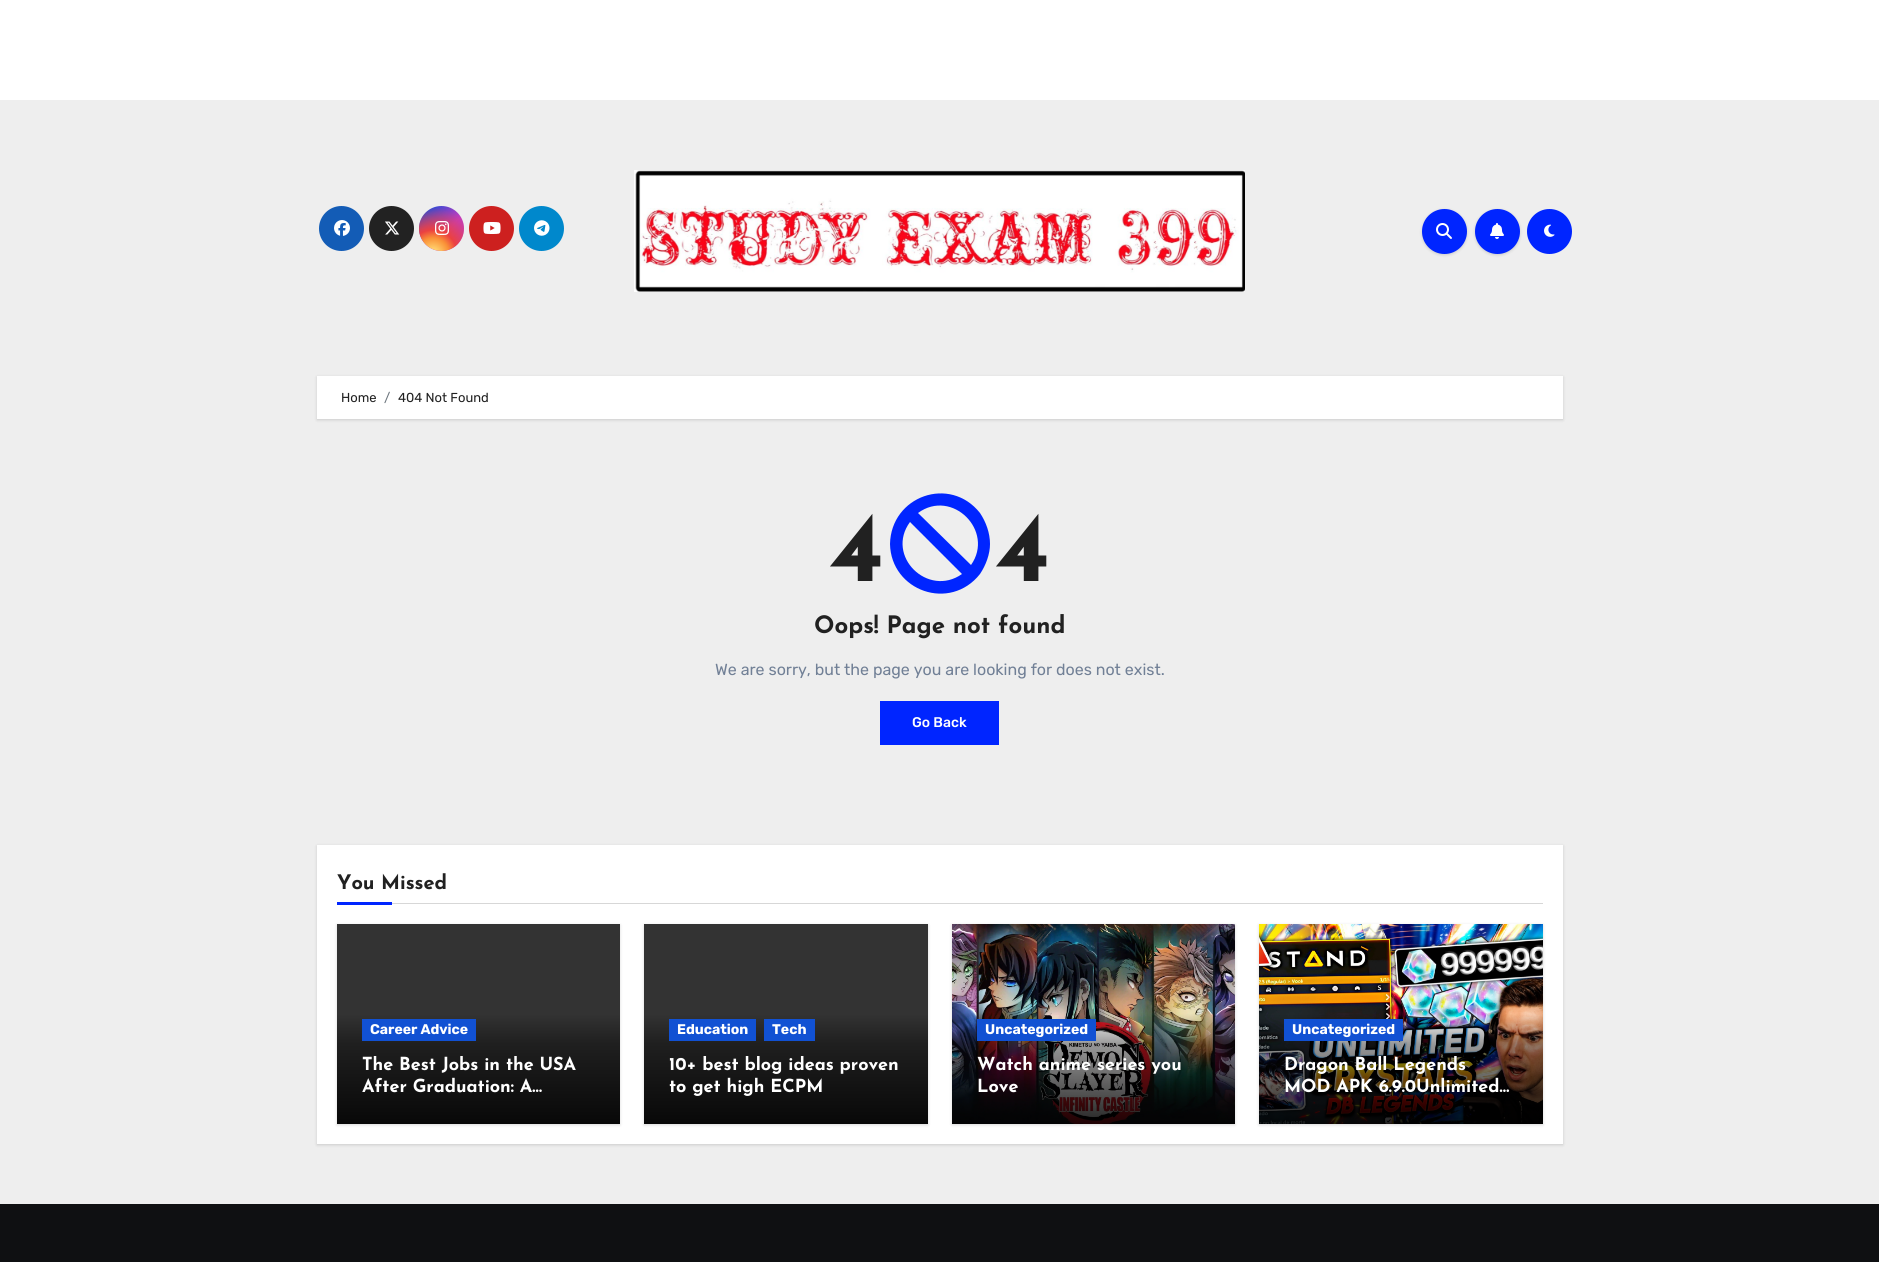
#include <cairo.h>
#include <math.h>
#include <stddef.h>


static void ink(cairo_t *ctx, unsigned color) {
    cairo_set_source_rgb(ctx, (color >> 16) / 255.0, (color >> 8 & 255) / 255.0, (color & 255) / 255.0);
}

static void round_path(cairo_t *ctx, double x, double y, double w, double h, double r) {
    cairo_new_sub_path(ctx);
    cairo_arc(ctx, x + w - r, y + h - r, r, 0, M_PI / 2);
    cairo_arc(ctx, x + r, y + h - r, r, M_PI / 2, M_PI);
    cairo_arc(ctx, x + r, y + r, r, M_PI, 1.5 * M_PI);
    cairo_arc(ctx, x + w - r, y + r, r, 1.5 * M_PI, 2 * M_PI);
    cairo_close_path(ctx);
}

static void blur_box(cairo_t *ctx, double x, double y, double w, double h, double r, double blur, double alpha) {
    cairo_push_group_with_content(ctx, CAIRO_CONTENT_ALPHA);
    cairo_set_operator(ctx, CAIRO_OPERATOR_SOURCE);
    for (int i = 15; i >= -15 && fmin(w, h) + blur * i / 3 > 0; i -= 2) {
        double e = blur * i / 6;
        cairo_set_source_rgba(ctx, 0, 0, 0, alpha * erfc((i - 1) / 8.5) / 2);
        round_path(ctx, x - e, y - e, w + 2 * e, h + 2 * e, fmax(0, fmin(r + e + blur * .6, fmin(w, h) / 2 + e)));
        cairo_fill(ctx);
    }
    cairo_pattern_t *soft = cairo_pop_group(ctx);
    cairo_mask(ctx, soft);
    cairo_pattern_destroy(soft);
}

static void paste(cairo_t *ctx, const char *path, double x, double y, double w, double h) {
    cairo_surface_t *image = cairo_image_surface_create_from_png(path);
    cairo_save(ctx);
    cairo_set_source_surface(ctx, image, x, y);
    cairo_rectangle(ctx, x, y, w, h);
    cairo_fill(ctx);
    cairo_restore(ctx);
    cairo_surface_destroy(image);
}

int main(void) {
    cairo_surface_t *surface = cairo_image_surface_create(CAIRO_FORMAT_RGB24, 1879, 1262);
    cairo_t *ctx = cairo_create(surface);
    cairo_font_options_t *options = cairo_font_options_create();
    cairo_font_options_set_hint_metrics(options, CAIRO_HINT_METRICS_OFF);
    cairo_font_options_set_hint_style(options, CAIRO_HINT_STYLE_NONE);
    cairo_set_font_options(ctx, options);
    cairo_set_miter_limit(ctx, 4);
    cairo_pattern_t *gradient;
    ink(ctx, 0xFFFFFF);
    cairo_paint(ctx);
    ink(ctx, 0xEEEEEE);
    cairo_rectangle(ctx, 0, 100, 1879, 1104);
    cairo_fill(ctx);
    ink(ctx, 0x135CB6);
    cairo_arc(ctx, 341.5, 228.5, 22.5, 0, 2 * M_PI);
    cairo_fill(ctx);
    paste(ctx, "media/1.png", 334, 220, 16, 16);
    ink(ctx, 0x222222);
    cairo_arc(ctx, 391.5, 228.5, 22.5, 0, 2 * M_PI);
    cairo_fill(ctx);
    paste(ctx, "media/2.png", 385, 221, 15, 14);
    gradient = cairo_pattern_create_linear(419, 206, 464, 251);
    cairo_pattern_add_color_stop_rgba(gradient, 0.12, 0.137, 0.294, 0.843, 1);
    cairo_pattern_add_color_stop_rgba(gradient, 0.58, 0.765, 0.235, 0.745, 1);
    cairo_set_source(ctx, gradient);
    cairo_pattern_destroy(gradient);
    cairo_arc(ctx, 441.5, 228.5, 22.5, 0, 2 * M_PI);
    cairo_fill(ctx);
    gradient = cairo_pattern_create_radial(433, 254, 0, 433, 254, 57);
    cairo_pattern_add_color_stop_rgba(gradient, 0, 1, 0.882, 0.49, 1);
    cairo_pattern_add_color_stop_rgba(gradient, 0.1, 1, 0.804, 0.412, 1);
    cairo_pattern_add_color_stop_rgba(gradient, 0.28, 0.98, 0.569, 0.216, 1);
    cairo_pattern_add_color_stop_rgba(gradient, 0.42, 0.922, 0.255, 0.255, 1);
    cairo_pattern_add_color_stop_rgba(gradient, 0.82, 0.922, 0.255, 0.255, 0);
    cairo_set_source(ctx, gradient);
    cairo_pattern_destroy(gradient);
    cairo_arc(ctx, 441.5, 228.5, 22.5, 0, 2 * M_PI);
    cairo_fill(ctx);
    paste(ctx, "media/3.png", 435, 221, 14, 14);
    ink(ctx, 0xCD201F);
    cairo_arc(ctx, 491.5, 228.5, 22.5, 0, 2 * M_PI);
    cairo_fill(ctx);
    paste(ctx, "media/4.png", 483, 222, 18, 12);
    ink(ctx, 0x0088CC);
    cairo_arc(ctx, 541.5, 228.5, 22.5, 0, 2 * M_PI);
    cairo_fill(ctx);
    paste(ctx, "media/5.png", 534, 220, 16, 16);
    paste(ctx, "media/6.png", 634, 170, 611, 122);
    ink(ctx, 0x000000);
    blur_box(ctx, 1422, 210, 45, 45, 22.5, 1.5, 0.15);
    ink(ctx, 0x0025FF);
    cairo_arc(ctx, 1444.5, 231.5, 22.5, 0, 2 * M_PI);
    cairo_fill(ctx);
    paste(ctx, "media/7.png", 1436, 223, 16, 16);
    ink(ctx, 0x000000);
    blur_box(ctx, 1475, 210, 45, 45, 22.5, 1.5, 0.15);
    ink(ctx, 0x0025FF);
    cairo_arc(ctx, 1497.5, 231.5, 22.5, 0, 2 * M_PI);
    cairo_fill(ctx);
    paste(ctx, "media/8.png", 1490, 223, 14, 16);
    cairo_arc(ctx, 1549.5, 231.5, 22.5, 0, 2 * M_PI);
    cairo_fill(ctx);
    paste(ctx, "media/9.png", 1544, 224, 11, 13);
    ink(ctx, 0x000000);
    blur_box(ctx, 317, 377, 1246, 43, 0, 1.5, 0.15);
    ink(ctx, 0xFFFFFF);
    cairo_rectangle(ctx, 317, 376, 1246, 43);
    cairo_fill(ctx);
    cairo_select_font_face(ctx, "Rubik Light", CAIRO_FONT_SLANT_NORMAL, CAIRO_FONT_WEIGHT_NORMAL);
    cairo_set_font_size(ctx, 13);
    ink(ctx, 0x212121);
    cairo_move_to(ctx, 341, 402);
    cairo_show_text(ctx, "Home");
    ink(ctx, 0x6C757D);
    cairo_move_to(ctx, 384, 402);
    cairo_show_text(ctx, "/");
    ink(ctx, 0x212121);
    cairo_move_to(ctx, 398, 402);
    cairo_show_text(ctx, "404 Not Found");
    cairo_select_font_face(ctx, "Josefin Sans", CAIRO_FONT_SLANT_NORMAL, CAIRO_FONT_WEIGHT_BOLD);
    cairo_set_font_size(ctx, 100);
    cairo_move_to(ctx, 829, 581);
    cairo_show_text(ctx, "4");
    ink(ctx, 0x0025FF);
    cairo_new_path(ctx);
    cairo_move_to(ctx, 962, 574);
    cairo_line_to(ctx, 910, 522);
    cairo_curve_to(ctx, 885, 556, 928, 598, 962, 574);
    cairo_close_path(ctx);
    cairo_move_to(ctx, 971, 565);
    cairo_curve_to(ctx, 995, 531, 952, 488, 918, 513);
    cairo_close_path(ctx);
    cairo_move_to(ctx, 890, 544);
    cairo_curve_to(ctx, 891, 496, 950, 475, 980, 513);
    cairo_curve_to(ctx, 986, 522, 990, 533, 990, 544);
    cairo_curve_to(ctx, 990, 554, 986, 565, 980, 574);
    cairo_curve_to(ctx, 950, 612, 891, 591, 890, 544);
    cairo_close_path(ctx);
    cairo_fill(ctx);
    ink(ctx, 0x212121);
    cairo_move_to(ctx, 995, 581);
    cairo_show_text(ctx, "4");
    cairo_set_font_size(ctx, 24);
    cairo_move_to(ctx, 814, 633);
    cairo_show_text(ctx, "Oops! Page not found");
    cairo_select_font_face(ctx, "Rubik Light", CAIRO_FONT_SLANT_NORMAL, CAIRO_FONT_WEIGHT_NORMAL);
    cairo_set_font_size(ctx, 16);
    ink(ctx, 0x718096);
    cairo_move_to(ctx, 715, 675);
    cairo_show_text(ctx, "We are sorry, but the page you are looking for does not exist.");
    ink(ctx, 0x0025FF);
    cairo_rectangle(ctx, 880, 701, 119, 44);
    cairo_fill(ctx);
    cairo_select_font_face(ctx, "Rubik Medium", CAIRO_FONT_SLANT_NORMAL, CAIRO_FONT_WEIGHT_NORMAL);
    cairo_set_font_size(ctx, 14);
    ink(ctx, 0xFFFFFF);
    cairo_move_to(ctx, 912, 727);
    cairo_show_text(ctx, "Go Back");
    ink(ctx, 0x000000);
    blur_box(ctx, 317, 846, 1246, 299, 0, 1.5, 0.15);
    ink(ctx, 0xFFFFFF);
    cairo_rectangle(ctx, 317, 845, 1246, 299);
    cairo_fill(ctx);
    ink(ctx, 0xD7D7D7);
    cairo_rectangle(ctx, 392, 903, 1151, 1);
    cairo_fill(ctx);
    cairo_select_font_face(ctx, "Josefin Sans", CAIRO_FONT_SLANT_NORMAL, CAIRO_FONT_WEIGHT_BOLD);
    cairo_set_font_size(ctx, 20);
    ink(ctx, 0x212121);
    cairo_move_to(ctx, 337, 889);
    cairo_show_text(ctx, "You Missed");
    ink(ctx, 0x0025FF);
    cairo_rectangle(ctx, 337, 902, 55, 3);
    cairo_fill(ctx);
    ink(ctx, 0x000000);
    blur_box(ctx, 337, 925, 283, 200, 0, 1.5, 0.15);
    gradient = cairo_pattern_create_linear(479, 924, 479, 1124);
    cairo_pattern_add_color_stop_rgba(gradient, 0, 0.2, 0.2, 0.2, 1);
    cairo_pattern_add_color_stop_rgba(gradient, 0.45, 0.2, 0.2, 0.2, 1);
    cairo_pattern_add_color_stop_rgba(gradient, 0.6, 0.122, 0.122, 0.122, 1);
    cairo_pattern_add_color_stop_rgba(gradient, 1, 0.031, 0.031, 0.031, 1);
    cairo_set_source(ctx, gradient);
    cairo_pattern_destroy(gradient);
    cairo_rectangle(ctx, 337, 924, 283, 200);
    cairo_fill(ctx);
    ink(ctx, 0x1151D3);
    cairo_rectangle(ctx, 362, 1019, 114, 22);
    cairo_fill(ctx);
    cairo_select_font_face(ctx, "Rubik", CAIRO_FONT_SLANT_NORMAL, CAIRO_FONT_WEIGHT_BOLD);
    cairo_set_font_size(ctx, 14);
    ink(ctx, 0xFFFFFF);
    cairo_move_to(ctx, 370, 1034);
    cairo_show_text(ctx, "Career Advice");
    cairo_save(ctx);
    cairo_rectangle(ctx, 362, 1056, 233, 43);
    cairo_clip(ctx);
    cairo_select_font_face(ctx, "Josefin Sans", CAIRO_FONT_SLANT_NORMAL, CAIRO_FONT_WEIGHT_BOLD);
    cairo_set_font_size(ctx, 18);
    cairo_move_to(ctx, 362, 1070);
    cairo_show_text(ctx, "The Best Jobs in the USA");
    cairo_restore(ctx);
    cairo_select_font_face(ctx, "Josefin Sans", CAIRO_FONT_SLANT_NORMAL, CAIRO_FONT_WEIGHT_BOLD);
    cairo_set_font_size(ctx, 18);
    cairo_move_to(ctx, 362, 1092);
    cairo_show_text(ctx, "After Graduation: A…");
    ink(ctx, 0x000000);
    blur_box(ctx, 644, 925, 284, 200, 0, 1.5, 0.15);
    gradient = cairo_pattern_create_linear(786, 924, 786, 1124);
    cairo_pattern_add_color_stop_rgba(gradient, 0, 0.2, 0.2, 0.2, 1);
    cairo_pattern_add_color_stop_rgba(gradient, 0.45, 0.2, 0.2, 0.2, 1);
    cairo_pattern_add_color_stop_rgba(gradient, 0.6, 0.122, 0.122, 0.122, 1);
    cairo_pattern_add_color_stop_rgba(gradient, 1, 0.031, 0.031, 0.031, 1);
    cairo_set_source(ctx, gradient);
    cairo_pattern_destroy(gradient);
    cairo_rectangle(ctx, 644, 924, 284, 200);
    cairo_fill(ctx);
    ink(ctx, 0x1151D3);
    cairo_rectangle(ctx, 669, 1019, 87, 22);
    cairo_fill(ctx);
    cairo_select_font_face(ctx, "Rubik", CAIRO_FONT_SLANT_NORMAL, CAIRO_FONT_WEIGHT_BOLD);
    cairo_set_font_size(ctx, 14);
    ink(ctx, 0xFFFFFF);
    cairo_move_to(ctx, 677, 1034);
    cairo_show_text(ctx, "Education");
    ink(ctx, 0x1151D3);
    cairo_rectangle(ctx, 764, 1019, 51, 22);
    cairo_fill(ctx);
    ink(ctx, 0xFFFFFF);
    cairo_move_to(ctx, 772, 1034);
    cairo_show_text(ctx, "Tech");
    cairo_save(ctx);
    cairo_rectangle(ctx, 669, 1056, 234, 43);
    cairo_clip(ctx);
    cairo_select_font_face(ctx, "Josefin Sans", CAIRO_FONT_SLANT_NORMAL, CAIRO_FONT_WEIGHT_BOLD);
    cairo_set_font_size(ctx, 18);
    cairo_move_to(ctx, 669, 1070);
    cairo_show_text(ctx, "10+ best blog ideas proven");
    cairo_restore(ctx);
    cairo_select_font_face(ctx, "Josefin Sans", CAIRO_FONT_SLANT_NORMAL, CAIRO_FONT_WEIGHT_BOLD);
    cairo_set_font_size(ctx, 18);
    cairo_move_to(ctx, 669, 1092);
    cairo_show_text(ctx, "to get high ECPM");
    ink(ctx, 0x000000);
    blur_box(ctx, 952, 925, 283, 200, 0, 1.5, 0.15);
    paste(ctx, "media/10.png", 952, 924, 283, 200);
    ink(ctx, 0x1151D3);
    cairo_rectangle(ctx, 977, 1019, 119, 22);
    cairo_fill(ctx);
    cairo_select_font_face(ctx, "Rubik", CAIRO_FONT_SLANT_NORMAL, CAIRO_FONT_WEIGHT_BOLD);
    cairo_set_font_size(ctx, 14);
    ink(ctx, 0xFFFFFF);
    cairo_move_to(ctx, 985, 1034);
    cairo_show_text(ctx, "Uncategorized");
    cairo_save(ctx);
    cairo_rectangle(ctx, 977, 1056, 233, 43);
    cairo_clip(ctx);
    cairo_select_font_face(ctx, "Josefin Sans", CAIRO_FONT_SLANT_NORMAL, CAIRO_FONT_WEIGHT_BOLD);
    cairo_set_font_size(ctx, 18);
    cairo_move_to(ctx, 977, 1070);
    cairo_show_text(ctx, "Watch anime series you");
    cairo_restore(ctx);
    cairo_select_font_face(ctx, "Josefin Sans", CAIRO_FONT_SLANT_NORMAL, CAIRO_FONT_WEIGHT_BOLD);
    cairo_set_font_size(ctx, 18);
    cairo_move_to(ctx, 977, 1092);
    cairo_show_text(ctx, "Love");
    ink(ctx, 0x000000);
    blur_box(ctx, 1259, 925, 284, 200, 0, 1.5, 0.15);
    paste(ctx, "media/11.png", 1259, 924, 284, 200);
    ink(ctx, 0x1151D3);
    cairo_rectangle(ctx, 1284, 1019, 119, 22);
    cairo_fill(ctx);
    cairo_select_font_face(ctx, "Rubik", CAIRO_FONT_SLANT_NORMAL, CAIRO_FONT_WEIGHT_BOLD);
    cairo_set_font_size(ctx, 14);
    ink(ctx, 0xFFFFFF);
    cairo_move_to(ctx, 1292, 1034);
    cairo_show_text(ctx, "Uncategorized");
    cairo_save(ctx);
    cairo_rectangle(ctx, 1284, 1056, 234, 43);
    cairo_clip(ctx);
    cairo_select_font_face(ctx, "Josefin Sans", CAIRO_FONT_SLANT_NORMAL, CAIRO_FONT_WEIGHT_BOLD);
    cairo_set_font_size(ctx, 18);
    cairo_move_to(ctx, 1284, 1070);
    cairo_show_text(ctx, "Dragon Ball Legends");
    cairo_restore(ctx);
    cairo_select_font_face(ctx, "Josefin Sans", CAIRO_FONT_SLANT_NORMAL, CAIRO_FONT_WEIGHT_BOLD);
    cairo_set_font_size(ctx, 18);
    cairo_move_to(ctx, 1284, 1092);
    cairo_show_text(ctx, "MOD APK 6.9.0Unlimited…");
    ink(ctx, 0x0F1012);
    cairo_rectangle(ctx, 0, 1204, 1879, 58);
    cairo_fill(ctx);
    cairo_surface_write_to_png(surface, "image.png");
    cairo_font_options_destroy(options);
    cairo_destroy(ctx);
    cairo_surface_destroy(surface);
    return 0;
}
